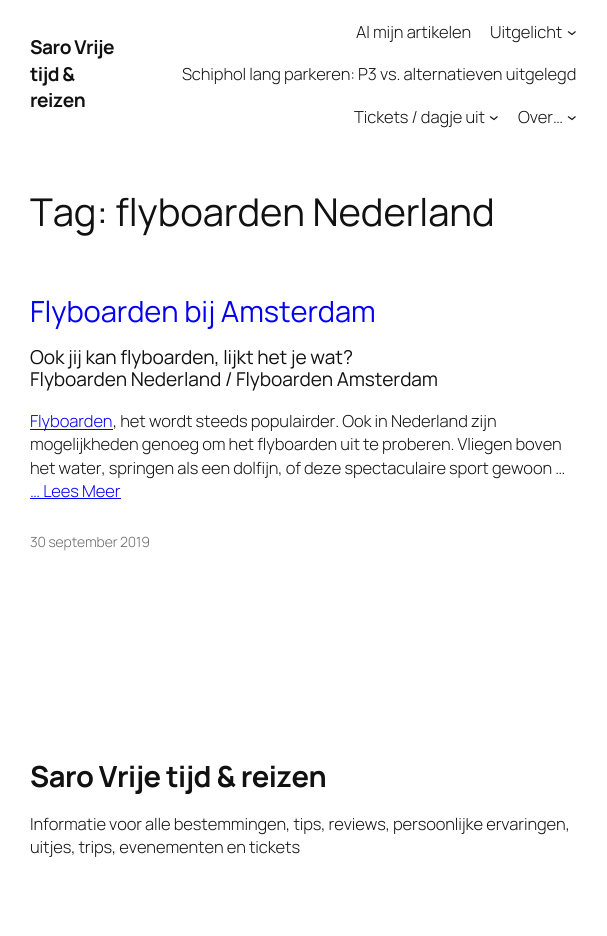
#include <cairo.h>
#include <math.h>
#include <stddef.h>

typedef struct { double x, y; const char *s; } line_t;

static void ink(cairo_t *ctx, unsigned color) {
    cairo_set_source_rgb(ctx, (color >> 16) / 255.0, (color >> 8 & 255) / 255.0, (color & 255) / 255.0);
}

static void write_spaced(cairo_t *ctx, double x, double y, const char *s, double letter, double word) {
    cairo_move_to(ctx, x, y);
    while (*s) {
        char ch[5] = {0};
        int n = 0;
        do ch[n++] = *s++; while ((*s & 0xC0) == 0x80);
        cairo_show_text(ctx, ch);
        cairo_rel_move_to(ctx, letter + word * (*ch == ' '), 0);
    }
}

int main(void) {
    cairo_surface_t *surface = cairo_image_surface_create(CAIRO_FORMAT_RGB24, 607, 936);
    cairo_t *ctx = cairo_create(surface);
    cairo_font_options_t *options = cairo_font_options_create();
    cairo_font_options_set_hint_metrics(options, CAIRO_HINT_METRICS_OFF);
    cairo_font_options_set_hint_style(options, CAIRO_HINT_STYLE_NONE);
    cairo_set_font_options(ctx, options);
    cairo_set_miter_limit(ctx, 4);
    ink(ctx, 0xFFFFFF);
    cairo_paint(ctx);
    cairo_select_font_face(ctx, "Manrope", CAIRO_FONT_SLANT_NORMAL, CAIRO_FONT_WEIGHT_BOLD);
    cairo_set_font_size(ctx, 19.1);
    ink(ctx, 0x111111);
    {
        static const line_t items[] = {
            {30, 54, "Saro Vrije"},
            {30, 81, "tijd &"},
            {30, 107, "reizen"},
        };
        for (size_t i = 0; i < sizeof items / sizeof *items; i++) {
            write_spaced(ctx, items[i].x, items[i].y, items[i].s, -0.5, 0);
        }
    }
    cairo_select_font_face(ctx, "Manrope Light", CAIRO_FONT_SLANT_NORMAL, CAIRO_FONT_WEIGHT_NORMAL);
    cairo_set_font_size(ctx, 16.55);
    write_spaced(ctx, 356, 38, "Al mijn artikelen", -0.1, 0);
    write_spaced(ctx, 490, 38, "Uitgelicht", -0.1, 0);
    cairo_new_path(ctx);
    cairo_move_to(ctx, 568, 31.5);
    cairo_line_to(ctx, 572, 34.5);
    cairo_line_to(ctx, 575.5, 31.5);
    cairo_set_line_width(ctx, 1.2);
    cairo_stroke(ctx);
    write_spaced(ctx, 182, 80, "Schiphol lang parkeren: P3 vs. alternatieven uitgelegd", -0.1, 0);
    write_spaced(ctx, 354, 123, "Tickets / dagje uit", -0.1, 0);
    cairo_new_path(ctx);
    cairo_move_to(ctx, 490, 116.5);
    cairo_line_to(ctx, 494, 119.5);
    cairo_line_to(ctx, 497.5, 116.5);
    cairo_stroke(ctx);
    write_spaced(ctx, 518, 123, "Over…", -0.1, 0);
    cairo_new_path(ctx);
    cairo_move_to(ctx, 568, 116.5);
    cairo_line_to(ctx, 572, 119.5);
    cairo_line_to(ctx, 575.5, 116.5);
    cairo_stroke(ctx);
    cairo_select_font_face(ctx, "Manrope", CAIRO_FONT_SLANT_NORMAL, CAIRO_FONT_WEIGHT_NORMAL);
    cairo_set_font_size(ctx, 38.25);
    write_spaced(ctx, 30, 226, "Tag: flyboarden Nederland", -0.1, 0);
    cairo_set_font_size(ctx, 29.1);
    ink(ctx, 0x0500F0);
    write_spaced(ctx, 30, 322, "Flyboarden bij Amsterdam", -0.1, 0);
    cairo_set_font_size(ctx, 19.1);
    ink(ctx, 0x111111);
    write_spaced(ctx, 30, 364, "Ook jij kan flyboarden, lijkt het je wat?", -0.1, 0);
    write_spaced(ctx, 30, 386, "Flyboarden Nederland / Flyboarden Amsterdam", -0.1, 0);
    ink(ctx, 0x0500F0);
    cairo_rectangle(ctx, 30, 429, 83, 1);
    cairo_fill(ctx);
    cairo_select_font_face(ctx, "Manrope Light", CAIRO_FONT_SLANT_NORMAL, CAIRO_FONT_WEIGHT_NORMAL);
    cairo_set_font_size(ctx, 16.55);
    write_spaced(ctx, 30, 427, "Flyboarden", -0.1, 0);
    ink(ctx, 0x111111);
    {
        static const line_t items[] = {
            {113, 427, ", het wordt steeds populairder. Ook in Nederland zijn"},
            {30, 450, "mogelijkheden genoeg om het flyboarden uit te proberen. Vliegen boven"},
            {30, 474, "het water, springen als een dolfijn, of deze spectaculaire sport gewoon …"},
        };
        for (size_t i = 0; i < sizeof items / sizeof *items; i++) {
            write_spaced(ctx, items[i].x, items[i].y, items[i].s, -0.1, 0);
        }
    }
    ink(ctx, 0x0500F0);
    write_spaced(ctx, 30, 497, "… Lees Meer", -0.1, 0);
    cairo_rectangle(ctx, 30, 498, 91, 1);
    cairo_fill(ctx);
    cairo_set_font_size(ctx, 14);
    ink(ctx, 0x686868);
    write_spaced(ctx, 30, 547, "30 september 2019", -0.1, 0);
    cairo_select_font_face(ctx, "Manrope", CAIRO_FONT_SLANT_NORMAL, CAIRO_FONT_WEIGHT_BOLD);
    cairo_set_font_size(ctx, 29.1);
    ink(ctx, 0x111111);
    write_spaced(ctx, 30, 787, "Saro Vrije tijd & reizen", -0.5, 0);
    cairo_select_font_face(ctx, "Manrope Light", CAIRO_FONT_SLANT_NORMAL, CAIRO_FONT_WEIGHT_NORMAL);
    cairo_set_font_size(ctx, 16.55);
    write_spaced(ctx, 30, 830, "Informatie voor alle bestemmingen, tips, reviews, persoonlijke ervaringen,", -0.1, 0);
    write_spaced(ctx, 30, 853, "uitjes, trips, evenementen en tickets", -0.1, 0);
    cairo_surface_write_to_png(surface, "image.png");
    cairo_font_options_destroy(options);
    cairo_destroy(ctx);
    cairo_surface_destroy(surface);
    return 0;
}
